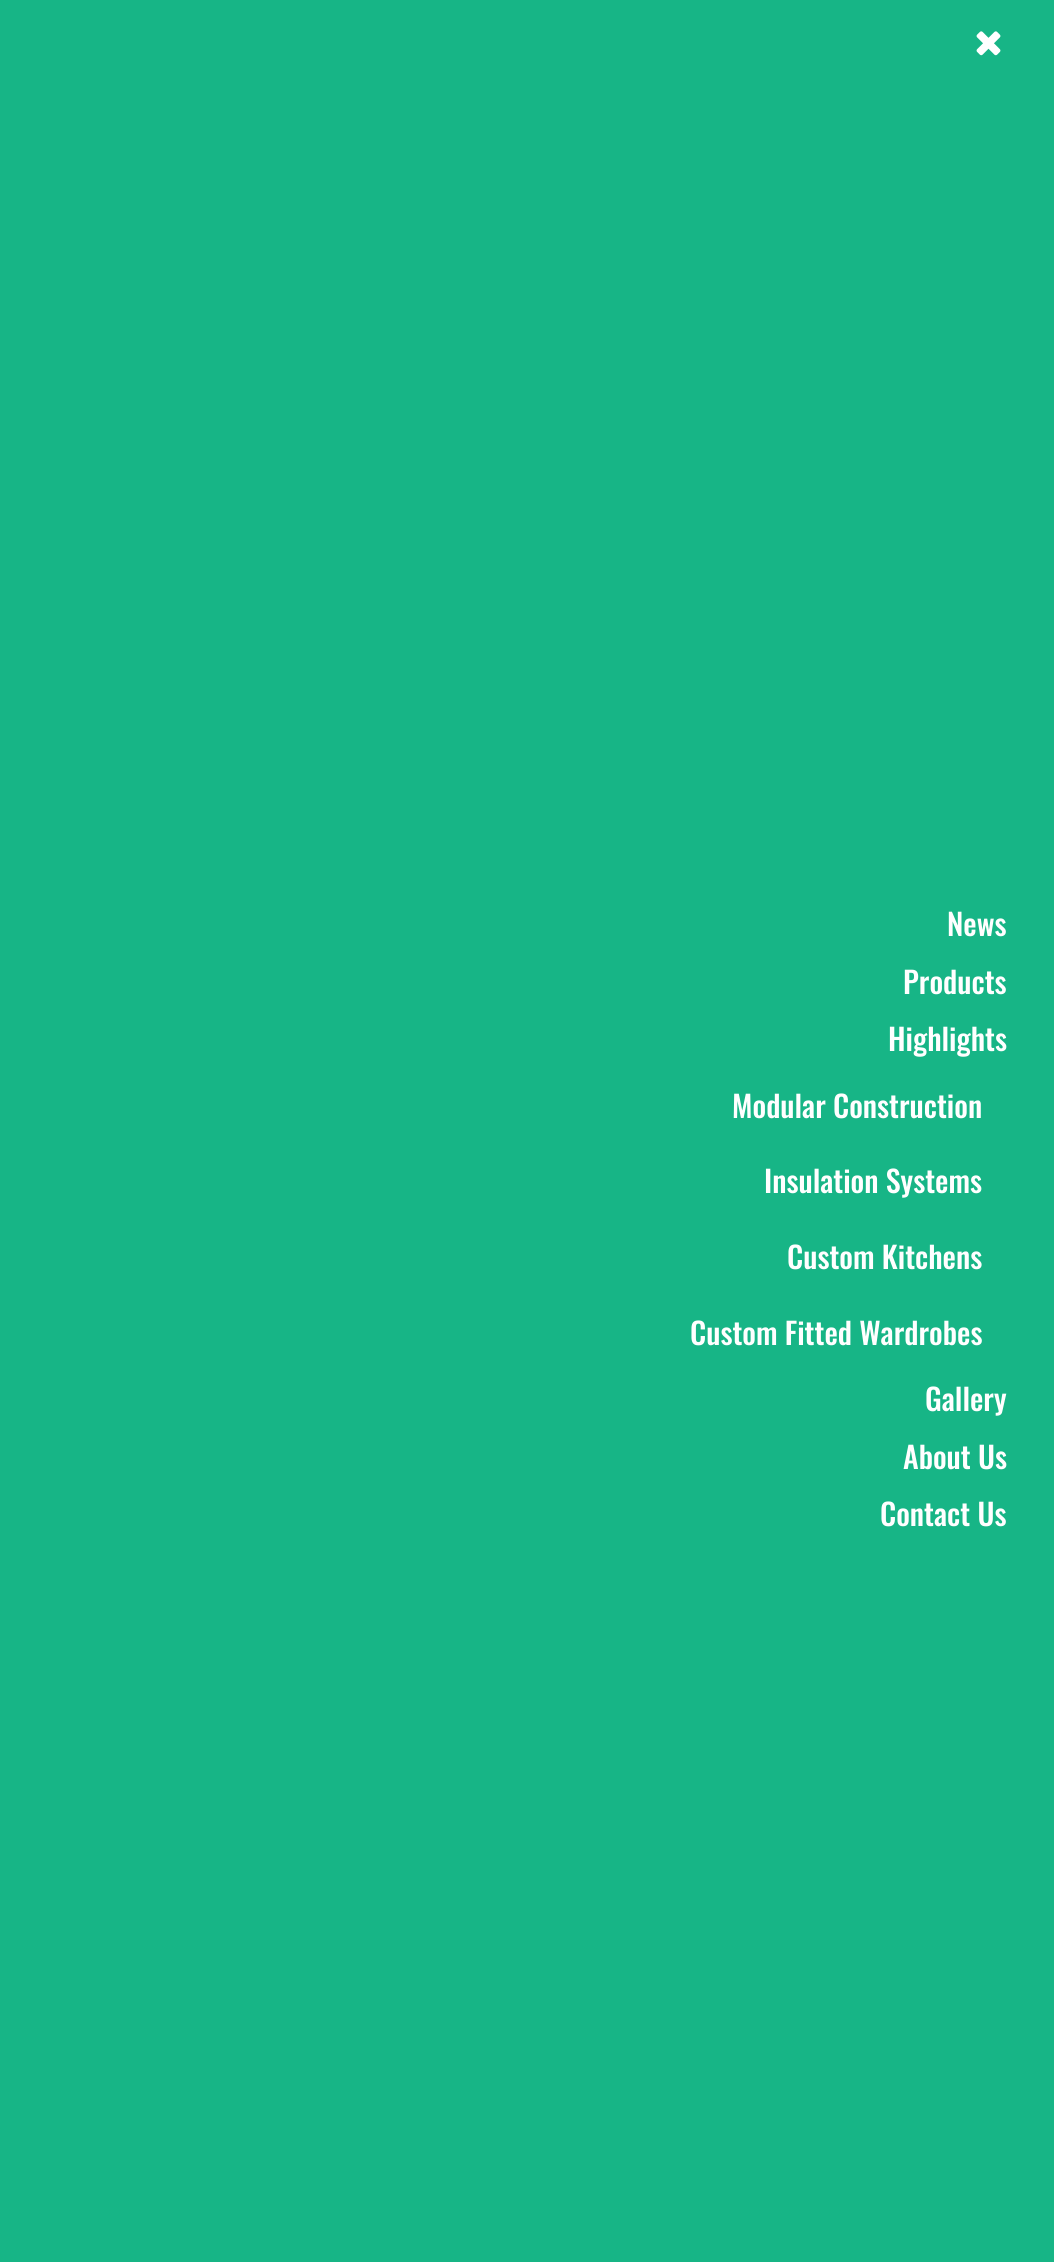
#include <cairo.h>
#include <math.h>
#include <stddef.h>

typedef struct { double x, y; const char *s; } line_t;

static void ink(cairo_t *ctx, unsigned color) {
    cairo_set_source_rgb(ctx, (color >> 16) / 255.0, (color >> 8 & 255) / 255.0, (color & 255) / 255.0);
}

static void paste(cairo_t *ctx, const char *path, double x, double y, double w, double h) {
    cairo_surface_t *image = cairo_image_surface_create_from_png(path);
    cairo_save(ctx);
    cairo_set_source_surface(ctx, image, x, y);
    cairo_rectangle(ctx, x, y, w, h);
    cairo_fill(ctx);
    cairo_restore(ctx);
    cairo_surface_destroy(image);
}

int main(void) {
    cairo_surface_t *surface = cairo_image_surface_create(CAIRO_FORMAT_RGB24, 1054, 2262);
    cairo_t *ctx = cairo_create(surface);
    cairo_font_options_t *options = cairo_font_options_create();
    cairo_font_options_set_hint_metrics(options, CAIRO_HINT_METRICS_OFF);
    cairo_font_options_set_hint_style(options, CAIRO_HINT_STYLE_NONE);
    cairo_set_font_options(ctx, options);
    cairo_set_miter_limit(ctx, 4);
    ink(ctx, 0x17B586);
    cairo_paint(ctx);
    paste(ctx, "media/1.png", 976, 31, 25, 25);
    cairo_select_font_face(ctx, "Oswald Medium", CAIRO_FONT_SLANT_NORMAL, CAIRO_FONT_WEIGHT_NORMAL);
    cairo_set_font_size(ctx, 30);
    ink(ctx, 0xFFFFFF);
    {
        static const line_t items[] = {
            {947, 936, "News"},
            {903, 994, "Products"},
            {888, 1051, "Highlights"},
            {732, 1118, "Modular Construction"},
            {764, 1193, "Insulation Systems"},
            {787, 1269, "Custom Kitchens"},
            {690, 1345, "Custom Fitted Wardrobes"},
            {925, 1411, "Gallery"},
            {903, 1469, "About Us"},
            {880, 1526, "Contact Us"},
        };
        for (size_t i = 0; i < sizeof items / sizeof *items; i++) {
            cairo_move_to(ctx, items[i].x, items[i].y);
            cairo_show_text(ctx, items[i].s);
        }
    }
    cairo_surface_write_to_png(surface, "image.png");
    cairo_font_options_destroy(options);
    cairo_destroy(ctx);
    cairo_surface_destroy(surface);
    return 0;
}
